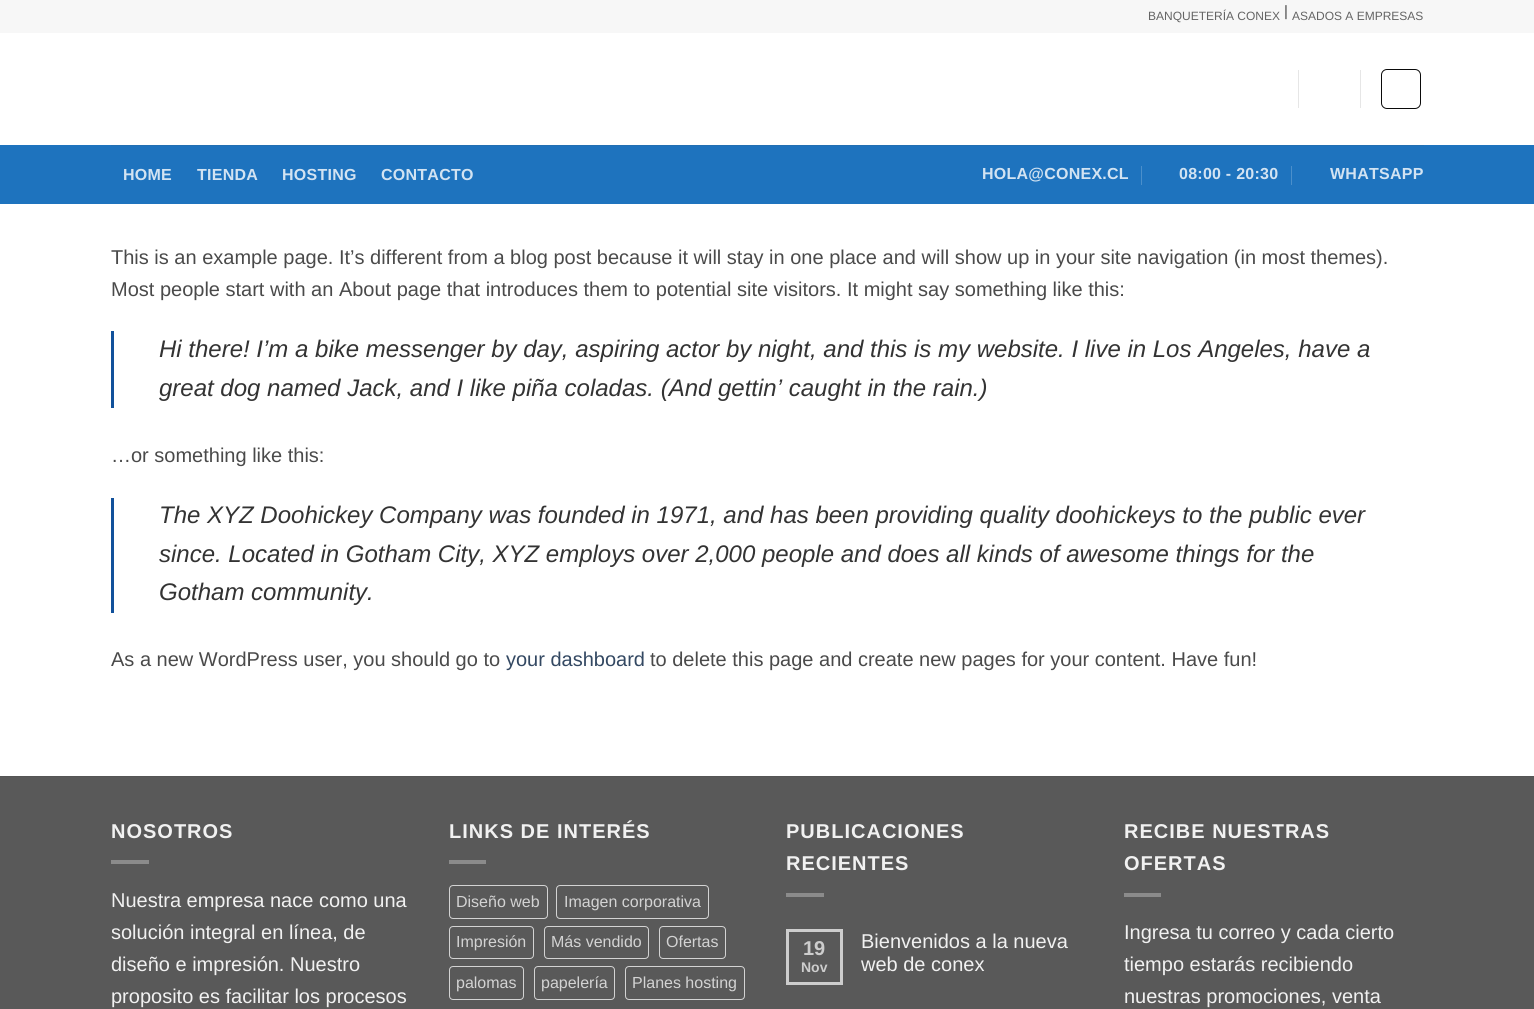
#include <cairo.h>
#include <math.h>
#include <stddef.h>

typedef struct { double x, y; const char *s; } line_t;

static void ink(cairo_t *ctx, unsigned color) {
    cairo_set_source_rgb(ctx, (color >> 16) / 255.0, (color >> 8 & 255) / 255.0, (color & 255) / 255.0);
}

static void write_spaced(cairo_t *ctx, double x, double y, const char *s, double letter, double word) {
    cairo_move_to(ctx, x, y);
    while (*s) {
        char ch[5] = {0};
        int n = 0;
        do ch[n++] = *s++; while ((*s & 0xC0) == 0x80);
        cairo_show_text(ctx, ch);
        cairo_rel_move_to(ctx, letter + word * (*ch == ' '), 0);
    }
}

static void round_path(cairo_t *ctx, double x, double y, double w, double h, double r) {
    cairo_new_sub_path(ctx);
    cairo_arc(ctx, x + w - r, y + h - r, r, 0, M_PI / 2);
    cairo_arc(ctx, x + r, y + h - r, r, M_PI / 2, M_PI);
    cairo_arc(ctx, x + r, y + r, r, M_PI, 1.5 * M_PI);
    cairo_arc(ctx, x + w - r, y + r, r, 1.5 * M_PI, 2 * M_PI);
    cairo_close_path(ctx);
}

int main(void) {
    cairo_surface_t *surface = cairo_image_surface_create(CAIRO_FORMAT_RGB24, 1534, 1009);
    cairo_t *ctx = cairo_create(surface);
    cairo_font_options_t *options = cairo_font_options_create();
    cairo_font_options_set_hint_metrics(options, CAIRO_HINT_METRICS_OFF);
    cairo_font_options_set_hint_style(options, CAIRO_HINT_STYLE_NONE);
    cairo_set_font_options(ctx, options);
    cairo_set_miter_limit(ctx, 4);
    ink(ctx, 0xFFFFFF);
    cairo_paint(ctx);
    ink(ctx, 0xF7F7F7);
    cairo_rectangle(ctx, 0, 0, 1534, 33);
    cairo_fill(ctx);
    cairo_select_font_face(ctx, "Liberation Sans", CAIRO_FONT_SLANT_NORMAL, CAIRO_FONT_WEIGHT_NORMAL);
    cairo_set_font_size(ctx, 12);
    ink(ctx, 0x646464);
    cairo_move_to(ctx, 1148, 20);
    cairo_show_text(ctx, "BANQUETERÍA CONEX");
    cairo_set_font_size(ctx, 15);
    ink(ctx, 0x4A4A4A);
    cairo_move_to(ctx, 1284, 16);
    cairo_show_text(ctx, "|");
    cairo_set_font_size(ctx, 12);
    ink(ctx, 0x646464);
    cairo_move_to(ctx, 1292, 20);
    cairo_show_text(ctx, "ASADOS A EMPRESAS");
    ink(ctx, 0xE6E6E6);
    cairo_rectangle(ctx, 1298, 70, 1, 38);
    cairo_fill(ctx);
    cairo_rectangle(ctx, 1360, 70, 1, 38);
    cairo_fill(ctx);
    round_path(ctx, 1381.5, 69.5, 39, 39, 5.5);
    ink(ctx, 0x0A0A0A);
    cairo_set_line_width(ctx, 1);
    cairo_stroke(ctx);
    ink(ctx, 0x1E73BE);
    cairo_rectangle(ctx, 0, 145, 1534, 59);
    cairo_fill(ctx);
    ink(ctx, 0x226FB2);
    cairo_rectangle(ctx, 111, 145, 1313, 1);
    cairo_fill(ctx);
    cairo_select_font_face(ctx, "Liberation Sans", CAIRO_FONT_SLANT_NORMAL, CAIRO_FONT_WEIGHT_BOLD);
    cairo_set_font_size(ctx, 16);
    ink(ctx, 0xD2E3F2);
    {
        static const line_t items[] = {
            {123, 180, "HOME"},
            {197, 180, "TIENDA"},
            {282, 180, "HOSTING"},
            {381, 180, "CONTACTO"},
            {982, 179, "HOLA@CONEX.CL"},
        };
        for (size_t i = 0; i < sizeof items / sizeof *items; i++) {
            write_spaced(ctx, items[i].x, items[i].y, items[i].s, 0.25, 0);
        }
    }
    ink(ctx, 0x4B8FCB);
    cairo_rectangle(ctx, 1141, 166, 1, 19);
    cairo_fill(ctx);
    ink(ctx, 0xD2E3F2);
    write_spaced(ctx, 1179, 179, "08:00 - 20:30", 0.25, 0);
    ink(ctx, 0x4B8FCB);
    cairo_rectangle(ctx, 1291, 166, 1, 19);
    cairo_fill(ctx);
    ink(ctx, 0xD2E3F2);
    write_spaced(ctx, 1330, 179, "WHATSAPP", 0.25, 0);
    cairo_select_font_face(ctx, "Liberation Sans", CAIRO_FONT_SLANT_NORMAL, CAIRO_FONT_WEIGHT_NORMAL);
    cairo_set_font_size(ctx, 20);
    ink(ctx, 0x4A4A4A);
    cairo_move_to(ctx, 111, 264);
    cairo_show_text(ctx, "This is an example page. It’s different from a blog post because it will stay in one place and will show up in your site navigation (in most themes).");
    cairo_move_to(ctx, 111, 296);
    cairo_show_text(ctx, "Most people start with an About page that introduces them to potential site visitors. It might say something like this:");
    ink(ctx, 0x11519B);
    cairo_rectangle(ctx, 111, 331, 3, 77);
    cairo_fill(ctx);
    cairo_select_font_face(ctx, "Liberation Sans", CAIRO_FONT_SLANT_ITALIC, CAIRO_FONT_WEIGHT_NORMAL);
    cairo_set_font_size(ctx, 24);
    ink(ctx, 0x333333);
    cairo_move_to(ctx, 159, 357);
    cairo_show_text(ctx, "Hi there! I’m a bike messenger by day, aspiring actor by night, and this is my website. I live in Los Angeles, have a");
    cairo_move_to(ctx, 159, 396);
    cairo_show_text(ctx, "great dog named Jack, and I like piña coladas. (And gettin’ caught in the rain.)");
    cairo_select_font_face(ctx, "Liberation Sans", CAIRO_FONT_SLANT_NORMAL, CAIRO_FONT_WEIGHT_NORMAL);
    cairo_set_font_size(ctx, 20);
    ink(ctx, 0x4A4A4A);
    cairo_move_to(ctx, 111, 462);
    cairo_show_text(ctx, "…or something like this:");
    ink(ctx, 0x11519B);
    cairo_rectangle(ctx, 111, 498, 3, 115);
    cairo_fill(ctx);
    cairo_select_font_face(ctx, "Liberation Sans", CAIRO_FONT_SLANT_ITALIC, CAIRO_FONT_WEIGHT_NORMAL);
    cairo_set_font_size(ctx, 24);
    ink(ctx, 0x333333);
    {
        static const line_t items[] = {
            {159, 523, "The XYZ Doohickey Company was founded in 1971, and has been providing quality doohickeys to the public ever"},
            {159, 562, "since. Located in Gotham City, XYZ employs over 2,000 people and does all kinds of awesome things for the"},
            {159, 600, "Gotham community."},
        };
        for (size_t i = 0; i < sizeof items / sizeof *items; i++) {
            cairo_move_to(ctx, items[i].x, items[i].y);
            cairo_show_text(ctx, items[i].s);
        }
    }
    cairo_select_font_face(ctx, "Liberation Sans", CAIRO_FONT_SLANT_NORMAL, CAIRO_FONT_WEIGHT_NORMAL);
    cairo_set_font_size(ctx, 20);
    ink(ctx, 0x4A4A4A);
    cairo_move_to(ctx, 111, 666);
    cairo_show_text(ctx, "As a new WordPress user, you should go to");
    ink(ctx, 0x334862);
    cairo_move_to(ctx, 506, 666);
    cairo_show_text(ctx, "your dashboard");
    ink(ctx, 0x4A4A4A);
    cairo_move_to(ctx, 650, 666);
    cairo_show_text(ctx, "to delete this page and create new pages for your content. Have fun!");
    ink(ctx, 0x595959);
    cairo_rectangle(ctx, 0, 777, 1534, 232);
    cairo_fill(ctx);
    ink(ctx, 0x555555);
    cairo_rectangle(ctx, 0, 776, 1534, 1);
    cairo_fill(ctx);
    cairo_select_font_face(ctx, "Liberation Sans", CAIRO_FONT_SLANT_NORMAL, CAIRO_FONT_WEIGHT_BOLD);
    ink(ctx, 0xF1F1F1);
    write_spaced(ctx, 111, 838, "NOSOTROS", 1, 0);
    ink(ctx, 0x8B8B8B);
    cairo_rectangle(ctx, 111, 860, 38, 4);
    cairo_fill(ctx);
    cairo_select_font_face(ctx, "Liberation Sans", CAIRO_FONT_SLANT_NORMAL, CAIRO_FONT_WEIGHT_NORMAL);
    ink(ctx, 0xF1F1F1);
    {
        static const line_t items[] = {
            {111, 907, "Nuestra empresa nace como una"},
            {111, 939, "solución integral en línea, de"},
            {111, 971, "diseño e impresión. Nuestro"},
            {111, 1003, "proposito es facilitar los procesos"},
        };
        for (size_t i = 0; i < sizeof items / sizeof *items; i++) {
            cairo_move_to(ctx, items[i].x, items[i].y);
            cairo_show_text(ctx, items[i].s);
        }
    }
    cairo_select_font_face(ctx, "Liberation Sans", CAIRO_FONT_SLANT_NORMAL, CAIRO_FONT_WEIGHT_BOLD);
    write_spaced(ctx, 449, 838, "LINKS DE INTERÉS", 1, 0);
    ink(ctx, 0x8B8B8B);
    cairo_rectangle(ctx, 449, 860, 37, 4);
    cairo_fill(ctx);
    round_path(ctx, 449.5, 885.5, 98, 33, 3.5);
    ink(ctx, 0xD3D3D3);
    cairo_stroke(ctx);
    cairo_select_font_face(ctx, "Liberation Sans", CAIRO_FONT_SLANT_NORMAL, CAIRO_FONT_WEIGHT_NORMAL);
    cairo_set_font_size(ctx, 16);
    cairo_move_to(ctx, 456, 907);
    cairo_show_text(ctx, "Diseño web");
    round_path(ctx, 556.5, 885.5, 152, 33, 3.5);
    cairo_stroke(ctx);
    cairo_move_to(ctx, 564, 907);
    cairo_show_text(ctx, "Imagen corporativa");
    round_path(ctx, 449.5, 926.5, 84, 32, 3.5);
    cairo_stroke(ctx);
    cairo_move_to(ctx, 456, 947);
    cairo_show_text(ctx, "Impresión");
    round_path(ctx, 544.5, 926.5, 104, 32, 3.5);
    cairo_stroke(ctx);
    cairo_move_to(ctx, 551, 947);
    cairo_show_text(ctx, "Más vendido");
    round_path(ctx, 659.5, 926.5, 66, 32, 3.5);
    cairo_stroke(ctx);
    cairo_move_to(ctx, 666, 947);
    cairo_show_text(ctx, "Ofertas");
    round_path(ctx, 449.5, 966.5, 74, 33, 3.5);
    cairo_stroke(ctx);
    cairo_move_to(ctx, 456, 988);
    cairo_show_text(ctx, "palomas");
    round_path(ctx, 534.5, 966.5, 80, 33, 3.5);
    cairo_stroke(ctx);
    cairo_move_to(ctx, 541, 988);
    cairo_show_text(ctx, "papelería");
    round_path(ctx, 625.5, 966.5, 119, 33, 3.5);
    cairo_stroke(ctx);
    cairo_move_to(ctx, 632, 988);
    cairo_show_text(ctx, "Planes hosting");
    cairo_select_font_face(ctx, "Liberation Sans", CAIRO_FONT_SLANT_NORMAL, CAIRO_FONT_WEIGHT_BOLD);
    cairo_set_font_size(ctx, 20);
    ink(ctx, 0xF1F1F1);
    write_spaced(ctx, 786, 838, "PUBLICACIONES", 1, 0);
    write_spaced(ctx, 786, 870, "RECIENTES", 1, 0);
    ink(ctx, 0x8B8B8B);
    cairo_rectangle(ctx, 786, 893, 38, 4);
    cairo_fill(ctx);
    cairo_rectangle(ctx, 787.5, 930.5, 54, 53);
    ink(ctx, 0xCDCDCD);
    cairo_set_line_width(ctx, 3);
    cairo_stroke(ctx);
    cairo_move_to(ctx, 803, 955);
    cairo_show_text(ctx, "19");
    cairo_set_font_size(ctx, 14);
    cairo_move_to(ctx, 801, 972);
    cairo_show_text(ctx, "Nov");
    cairo_select_font_face(ctx, "Liberation Sans", CAIRO_FONT_SLANT_NORMAL, CAIRO_FONT_WEIGHT_NORMAL);
    cairo_set_font_size(ctx, 20);
    ink(ctx, 0xF1F1F1);
    cairo_move_to(ctx, 861, 948);
    cairo_show_text(ctx, "Bienvenidos a la nueva");
    cairo_move_to(ctx, 861, 971);
    cairo_show_text(ctx, "web de conex");
    cairo_select_font_face(ctx, "Liberation Sans", CAIRO_FONT_SLANT_NORMAL, CAIRO_FONT_WEIGHT_BOLD);
    write_spaced(ctx, 1124, 838, "RECIBE NUESTRAS", 1, 0);
    write_spaced(ctx, 1124, 870, "OFERTAS", 1, 0);
    ink(ctx, 0x8B8B8B);
    cairo_rectangle(ctx, 1124, 893, 37, 4);
    cairo_fill(ctx);
    cairo_select_font_face(ctx, "Liberation Sans", CAIRO_FONT_SLANT_NORMAL, CAIRO_FONT_WEIGHT_NORMAL);
    ink(ctx, 0xF1F1F1);
    {
        static const line_t items[] = {
            {1124, 939, "Ingresa tu correo y cada cierto"},
            {1124, 971, "tiempo estarás recibiendo"},
            {1124, 1003, "nuestras promociones, venta"},
        };
        for (size_t i = 0; i < sizeof items / sizeof *items; i++) {
            cairo_move_to(ctx, items[i].x, items[i].y);
            cairo_show_text(ctx, items[i].s);
        }
    }
    cairo_surface_write_to_png(surface, "image.png");
    cairo_font_options_destroy(options);
    cairo_destroy(ctx);
    cairo_surface_destroy(surface);
    return 0;
}
